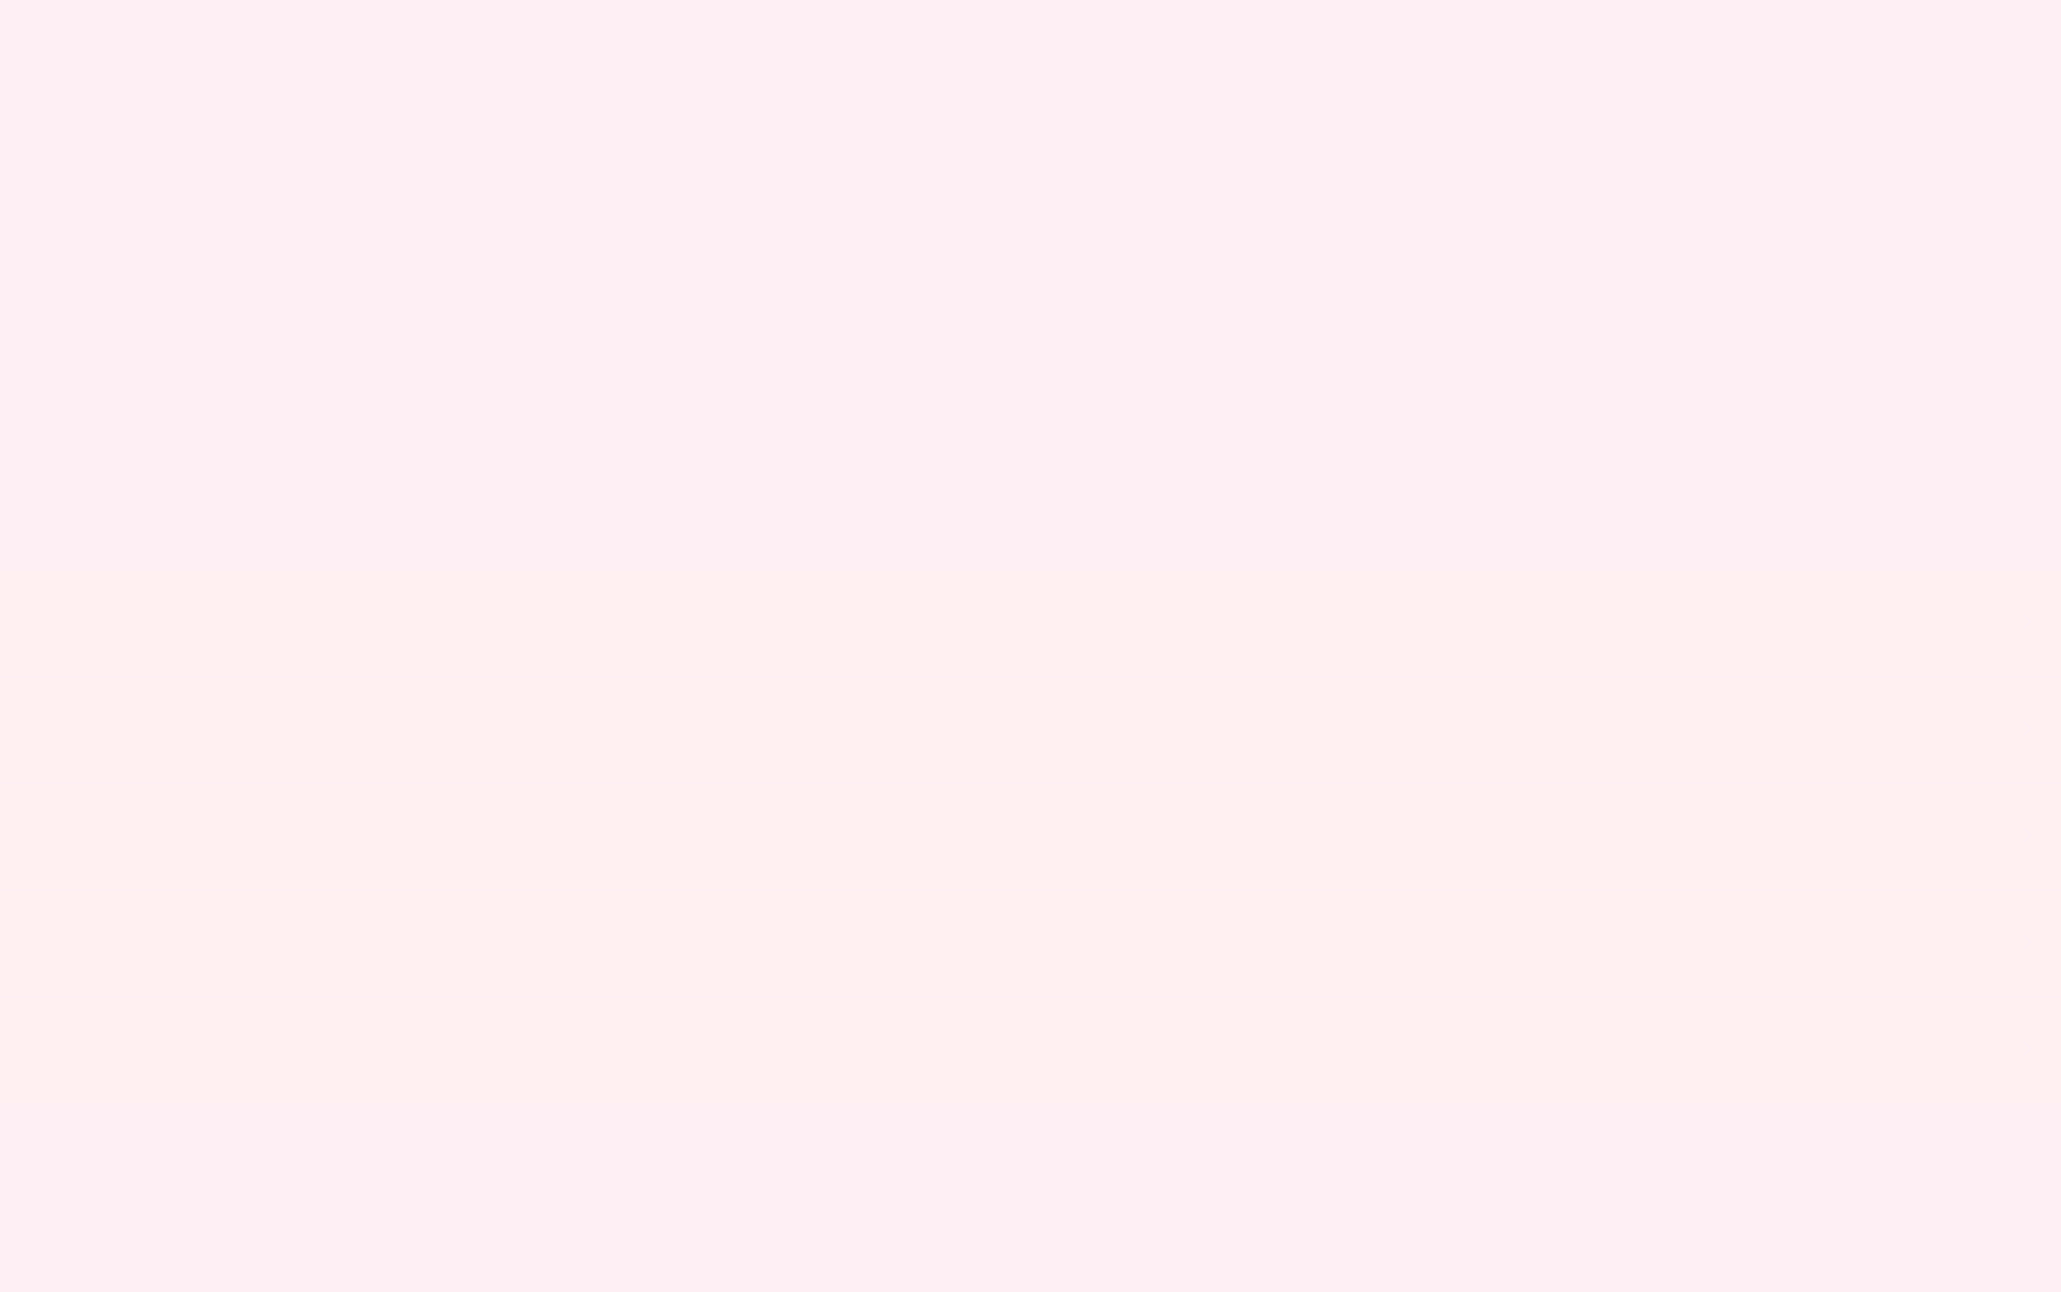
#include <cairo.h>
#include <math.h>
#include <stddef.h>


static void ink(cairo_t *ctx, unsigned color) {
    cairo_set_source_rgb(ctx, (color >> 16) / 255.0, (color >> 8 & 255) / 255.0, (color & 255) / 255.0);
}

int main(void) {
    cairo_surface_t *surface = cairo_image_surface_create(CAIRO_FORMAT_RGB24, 2061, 1292);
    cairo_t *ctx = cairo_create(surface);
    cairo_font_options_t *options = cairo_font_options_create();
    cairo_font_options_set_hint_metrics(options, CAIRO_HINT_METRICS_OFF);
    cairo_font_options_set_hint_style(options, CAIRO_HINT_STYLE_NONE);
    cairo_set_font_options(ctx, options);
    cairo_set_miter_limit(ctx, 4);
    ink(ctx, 0xFEEFF4);
    cairo_paint(ctx);
    ink(ctx, 0xFFF0F1);
    cairo_rectangle(ctx, 0, 571, 2061, 532);
    cairo_fill(ctx);
    ink(ctx, 0xFEEFF4);
    cairo_rectangle(ctx, 0, 676, 2061, 2);
    cairo_fill(ctx);
    cairo_new_path(ctx);
    cairo_move_to(ctx, 2024.5, 615.5);
    cairo_line_to(ctx, 2030.5, 621.5);
    cairo_line_to(ctx, 2024.5, 627.5);
    cairo_set_line_width(ctx, 2.2);
    cairo_set_line_cap(ctx, CAIRO_LINE_CAP_ROUND);
    cairo_stroke(ctx);
    cairo_rectangle(ctx, 0, 782, 2061, 2);
    cairo_fill(ctx);
    cairo_new_path(ctx);
    cairo_move_to(ctx, 2024.5, 722.5);
    cairo_line_to(ctx, 2030.5, 728.5);
    cairo_line_to(ctx, 2024.5, 734.5);
    cairo_stroke(ctx);
    cairo_rectangle(ctx, 0, 889, 2061, 2);
    cairo_fill(ctx);
    cairo_new_path(ctx);
    cairo_move_to(ctx, 2024.5, 829);
    cairo_line_to(ctx, 2030.5, 835);
    cairo_line_to(ctx, 2024.5, 841);
    cairo_stroke(ctx);
    cairo_rectangle(ctx, 0, 996, 2061, 2);
    cairo_fill(ctx);
    cairo_new_path(ctx);
    cairo_move_to(ctx, 2024.5, 936);
    cairo_line_to(ctx, 2030.5, 942);
    cairo_line_to(ctx, 2024.5, 948);
    cairo_stroke(ctx);
    cairo_new_path(ctx);
    cairo_move_to(ctx, 2024.5, 1042.5);
    cairo_line_to(ctx, 2030.5, 1048.5);
    cairo_line_to(ctx, 2024.5, 1054.5);
    cairo_stroke(ctx);
    cairo_surface_write_to_png(surface, "image.png");
    cairo_font_options_destroy(options);
    cairo_destroy(ctx);
    cairo_surface_destroy(surface);
    return 0;
}
